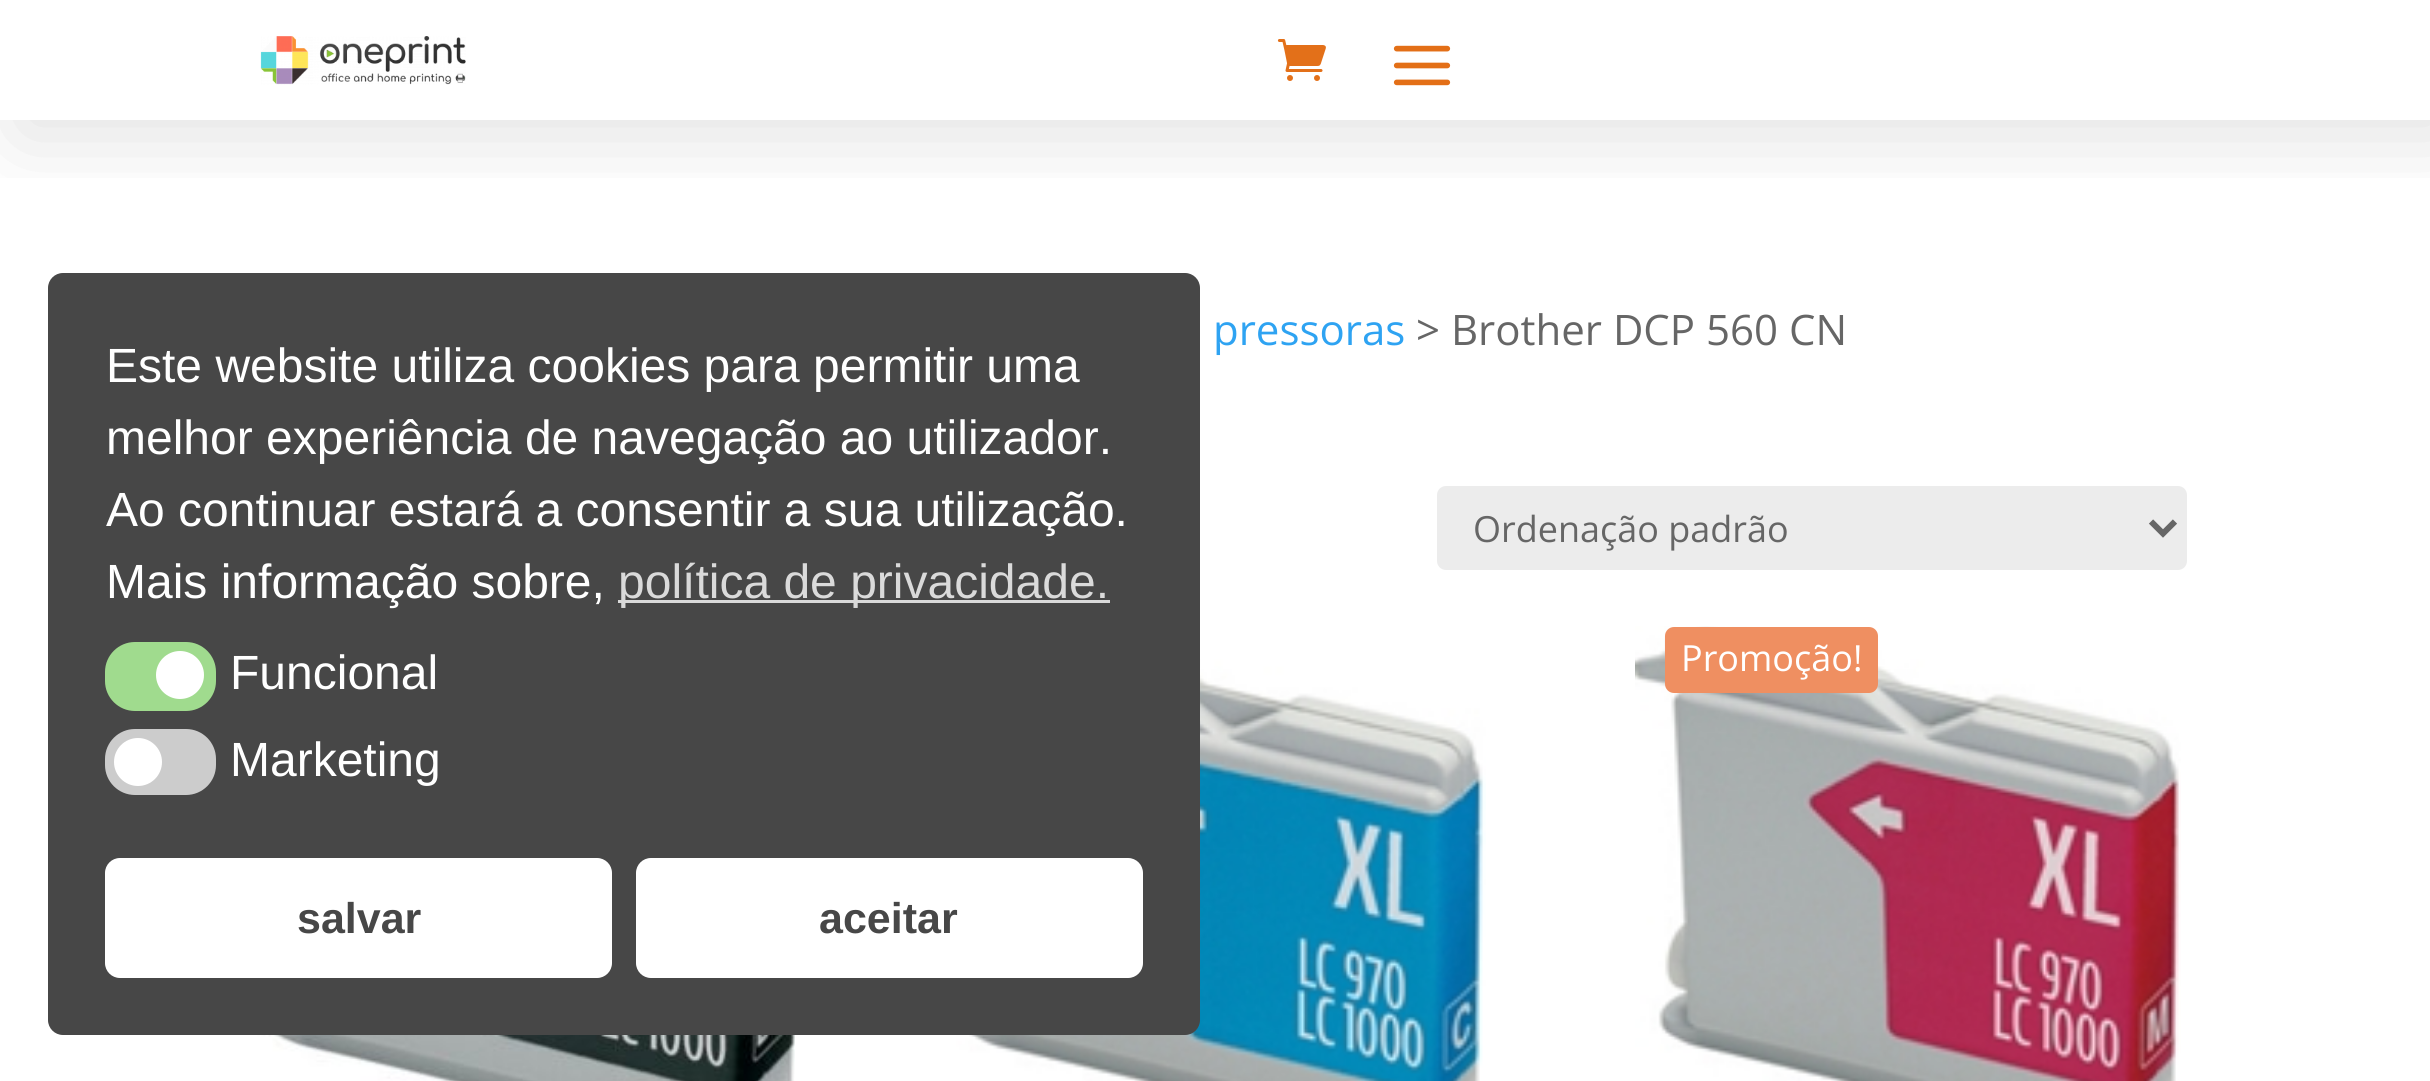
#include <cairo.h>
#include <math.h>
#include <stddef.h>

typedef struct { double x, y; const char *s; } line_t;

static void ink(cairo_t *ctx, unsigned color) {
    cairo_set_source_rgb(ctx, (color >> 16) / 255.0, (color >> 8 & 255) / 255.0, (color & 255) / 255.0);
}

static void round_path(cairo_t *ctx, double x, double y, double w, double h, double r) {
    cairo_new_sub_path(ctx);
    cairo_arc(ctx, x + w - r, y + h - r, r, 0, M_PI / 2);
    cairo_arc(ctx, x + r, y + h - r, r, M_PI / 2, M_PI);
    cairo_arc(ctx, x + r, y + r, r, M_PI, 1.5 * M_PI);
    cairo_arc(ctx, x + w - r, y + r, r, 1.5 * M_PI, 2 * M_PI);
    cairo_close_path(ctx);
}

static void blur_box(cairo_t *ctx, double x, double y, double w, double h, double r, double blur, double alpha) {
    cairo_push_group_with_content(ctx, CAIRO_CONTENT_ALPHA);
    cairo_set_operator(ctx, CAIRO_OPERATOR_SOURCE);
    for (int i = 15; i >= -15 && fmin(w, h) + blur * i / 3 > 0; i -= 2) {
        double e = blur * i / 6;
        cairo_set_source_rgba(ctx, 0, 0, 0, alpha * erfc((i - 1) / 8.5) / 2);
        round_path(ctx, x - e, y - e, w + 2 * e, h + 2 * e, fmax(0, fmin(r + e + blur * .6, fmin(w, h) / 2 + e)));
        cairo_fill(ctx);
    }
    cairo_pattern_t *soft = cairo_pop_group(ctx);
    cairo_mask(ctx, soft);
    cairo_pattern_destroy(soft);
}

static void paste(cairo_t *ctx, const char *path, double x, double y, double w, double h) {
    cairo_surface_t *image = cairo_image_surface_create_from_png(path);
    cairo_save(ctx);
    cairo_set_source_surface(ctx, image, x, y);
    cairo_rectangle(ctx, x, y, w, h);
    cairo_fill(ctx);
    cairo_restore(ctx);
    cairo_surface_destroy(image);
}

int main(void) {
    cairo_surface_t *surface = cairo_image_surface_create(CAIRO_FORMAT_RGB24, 2430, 1081);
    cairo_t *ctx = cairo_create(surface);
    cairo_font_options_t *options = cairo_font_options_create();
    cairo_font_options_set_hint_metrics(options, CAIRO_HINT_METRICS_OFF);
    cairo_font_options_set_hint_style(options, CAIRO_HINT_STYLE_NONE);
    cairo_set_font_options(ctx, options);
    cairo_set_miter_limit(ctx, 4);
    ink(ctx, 0xFFFFFF);
    cairo_paint(ctx);
    paste(ctx, "media/4.png", 939, 626, 547, 455);
    ink(ctx, 0x474747);
    round_path(ctx, 48, 273, 1152, 762, 15);
    cairo_fill(ctx);
    cairo_select_font_face(ctx, "Liberation Sans", CAIRO_FONT_SLANT_NORMAL, CAIRO_FONT_WEIGHT_NORMAL);
    cairo_set_font_size(ctx, 48);
    ink(ctx, 0xFFFFFF);
    {
        static const line_t items[] = {
            {106, 382, "Este website utiliza cookies para permitir uma"},
            {106, 454, "melhor experiência de navegação ao utilizador."},
            {106, 526, "Ao continuar estará a consentir a sua utilização."},
            {106, 598, "Mais informação sobre,"},
        };
        for (size_t i = 0; i < sizeof items / sizeof *items; i++) {
            cairo_move_to(ctx, items[i].x, items[i].y);
            cairo_show_text(ctx, items[i].s);
        }
    }
    ink(ctx, 0xDADADA);
    cairo_rectangle(ctx, 618, 600, 492, 3);
    cairo_fill(ctx);
    cairo_move_to(ctx, 618, 598);
    cairo_show_text(ctx, "política de privacidade.");
    ink(ctx, 0xA0DB8E);
    round_path(ctx, 105, 642, 111, 69, 30);
    cairo_fill(ctx);
    ink(ctx, 0xFFFFFF);
    cairo_arc(ctx, 180, 675, 24, 0, 2 * M_PI);
    cairo_fill(ctx);
    cairo_move_to(ctx, 230, 689);
    cairo_show_text(ctx, "Funcional");
    ink(ctx, 0xCCCCCC);
    round_path(ctx, 105, 729, 111, 66, 30);
    cairo_fill(ctx);
    ink(ctx, 0xFFFFFF);
    cairo_arc(ctx, 138, 762, 24, 0, 2 * M_PI);
    cairo_fill(ctx);
    cairo_move_to(ctx, 230, 776);
    cairo_show_text(ctx, "Marketing");
    round_path(ctx, 105, 858, 507, 120, 15);
    cairo_fill(ctx);
    cairo_select_font_face(ctx, "Liberation Sans", CAIRO_FONT_SLANT_NORMAL, CAIRO_FONT_WEIGHT_BOLD);
    cairo_set_font_size(ctx, 43);
    ink(ctx, 0x474747);
    cairo_move_to(ctx, 297, 933);
    cairo_show_text(ctx, "salvar");
    ink(ctx, 0xFFFFFF);
    round_path(ctx, 636, 858, 507, 120, 15);
    cairo_fill(ctx);
    ink(ctx, 0x474747);
    cairo_move_to(ctx, 819, 933);
    cairo_show_text(ctx, "aceitar");
    cairo_save(ctx);
    cairo_rectangle(ctx, 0, 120, 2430, 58);
    cairo_clip(ctx);
    ink(ctx, 0x000000);
    blur_box(ctx, 18, 15, 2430, 120, 0, 45, 0.12);
    cairo_restore(ctx);
    paste(ctx, "media/1.png", 260, 36, 206, 49);
    paste(ctx, "media/2.png", 1277, 39, 49, 42);
    paste(ctx, "media/3.png", 1393, 45, 58, 41);
    cairo_select_font_face(ctx, "Open Sans", CAIRO_FONT_SLANT_NORMAL, CAIRO_FONT_WEIGHT_NORMAL);
    cairo_set_font_size(ctx, 42);
    ink(ctx, 0x2EA3F2);
    cairo_move_to(ctx, 1213, 345);
    cairo_show_text(ctx, "pressoras");
    ink(ctx, 0x666666);
    cairo_move_to(ctx, 1416, 345);
    cairo_show_text(ctx, "> Brother DCP 560 CN");
    ink(ctx, 0xECECEC);
    round_path(ctx, 1437, 486, 750, 84, 9);
    cairo_fill(ctx);
    cairo_new_path(ctx);
    cairo_move_to(ctx, 2151, 521.5);
    cairo_line_to(ctx, 2163, 533.5);
    cairo_line_to(ctx, 2175, 521.5);
    ink(ctx, 0x666666);
    cairo_set_line_width(ctx, 6);
    cairo_stroke(ctx);
    cairo_set_font_size(ctx, 36);
    cairo_move_to(ctx, 1473, 542);
    cairo_show_text(ctx, "Ordenação padrão");
    paste(ctx, "media/5.png", 1635, 626, 546, 455);
    ink(ctx, 0xEF8F61);
    round_path(ctx, 1665, 627, 213, 66, 9);
    cairo_fill(ctx);
    ink(ctx, 0xFFFFFF);
    cairo_move_to(ctx, 1681, 671);
    cairo_show_text(ctx, "Promoção!");
    paste(ctx, "media/6.png", 243, 1035, 552, 46);
    cairo_surface_write_to_png(surface, "image.png");
    cairo_font_options_destroy(options);
    cairo_destroy(ctx);
    cairo_surface_destroy(surface);
    return 0;
}
